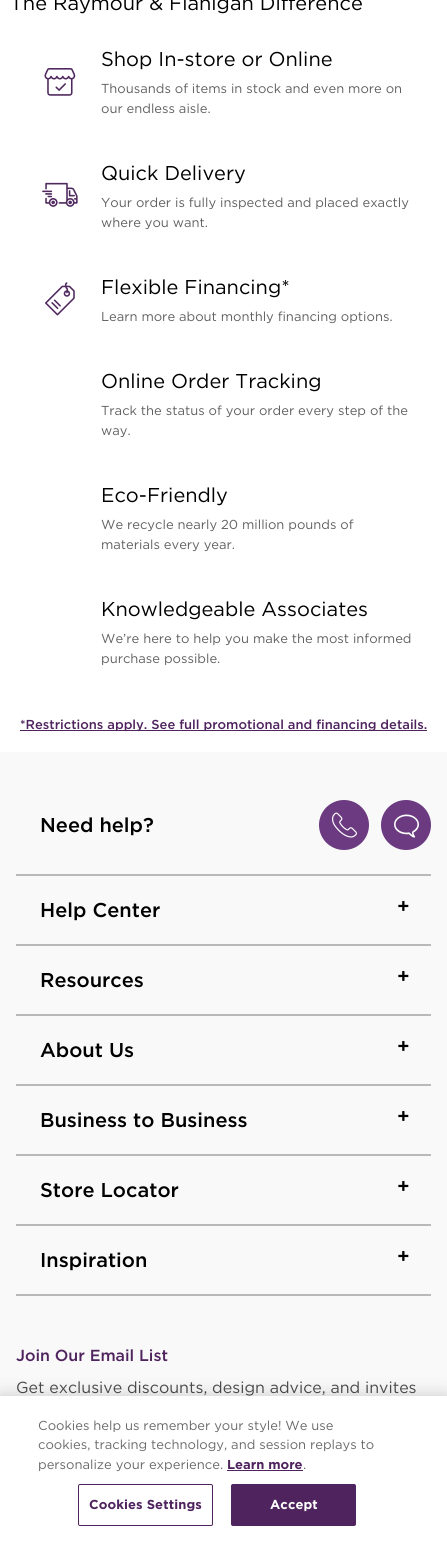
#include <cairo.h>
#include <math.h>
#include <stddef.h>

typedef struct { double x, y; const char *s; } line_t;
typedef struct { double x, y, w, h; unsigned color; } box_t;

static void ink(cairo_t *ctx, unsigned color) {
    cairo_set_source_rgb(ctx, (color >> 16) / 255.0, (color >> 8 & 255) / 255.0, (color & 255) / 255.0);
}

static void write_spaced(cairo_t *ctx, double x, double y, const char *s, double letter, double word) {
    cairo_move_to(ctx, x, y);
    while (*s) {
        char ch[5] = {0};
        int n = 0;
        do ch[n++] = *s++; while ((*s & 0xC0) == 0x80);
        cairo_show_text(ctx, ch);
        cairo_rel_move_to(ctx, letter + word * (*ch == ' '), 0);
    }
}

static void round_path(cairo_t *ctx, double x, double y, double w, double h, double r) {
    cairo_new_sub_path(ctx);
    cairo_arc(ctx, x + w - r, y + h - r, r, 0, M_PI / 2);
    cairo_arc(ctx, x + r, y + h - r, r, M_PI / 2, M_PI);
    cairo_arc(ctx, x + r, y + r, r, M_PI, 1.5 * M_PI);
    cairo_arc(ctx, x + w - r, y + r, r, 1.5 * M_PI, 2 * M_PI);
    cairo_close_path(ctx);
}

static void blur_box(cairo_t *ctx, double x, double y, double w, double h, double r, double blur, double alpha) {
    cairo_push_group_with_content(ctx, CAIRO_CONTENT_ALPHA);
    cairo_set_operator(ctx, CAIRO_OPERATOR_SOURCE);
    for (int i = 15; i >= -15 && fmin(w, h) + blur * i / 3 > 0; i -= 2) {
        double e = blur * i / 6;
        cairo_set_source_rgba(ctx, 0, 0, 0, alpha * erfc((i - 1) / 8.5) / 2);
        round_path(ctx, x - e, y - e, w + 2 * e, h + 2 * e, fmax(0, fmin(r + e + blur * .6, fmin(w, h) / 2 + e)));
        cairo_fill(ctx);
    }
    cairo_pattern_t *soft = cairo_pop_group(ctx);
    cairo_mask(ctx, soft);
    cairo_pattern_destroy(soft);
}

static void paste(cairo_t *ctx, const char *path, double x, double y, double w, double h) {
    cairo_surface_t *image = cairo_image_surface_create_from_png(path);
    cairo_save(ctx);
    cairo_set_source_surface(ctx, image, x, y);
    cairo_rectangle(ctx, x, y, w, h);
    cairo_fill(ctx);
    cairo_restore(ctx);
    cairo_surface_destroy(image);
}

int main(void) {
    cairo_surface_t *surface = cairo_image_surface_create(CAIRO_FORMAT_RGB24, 447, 1542);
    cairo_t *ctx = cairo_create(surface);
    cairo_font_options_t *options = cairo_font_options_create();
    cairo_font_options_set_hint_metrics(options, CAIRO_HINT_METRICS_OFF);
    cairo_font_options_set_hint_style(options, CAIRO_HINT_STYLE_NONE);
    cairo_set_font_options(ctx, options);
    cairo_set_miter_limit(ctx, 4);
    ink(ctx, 0xFFFFFF);
    cairo_paint(ctx);
    cairo_select_font_face(ctx, "Gotham", CAIRO_FONT_SLANT_NORMAL, CAIRO_FONT_WEIGHT_NORMAL);
    cairo_set_font_size(ctx, 20);
    ink(ctx, 0x000000);
    cairo_move_to(ctx, 10, 10);
    cairo_show_text(ctx, "The Raymour & Flanigan Difference");
    paste(ctx, "media/1.png", 44, 68, 32, 28);
    cairo_move_to(ctx, 101, 66);
    cairo_show_text(ctx, "Shop In-store or Online");
    cairo_set_font_size(ctx, 13);
    ink(ctx, 0x606060);
    cairo_move_to(ctx, 101, 93);
    cairo_show_text(ctx, "Thousands of items in stock and even more on");
    cairo_move_to(ctx, 101, 113);
    cairo_show_text(ctx, "our endless aisle.");
    paste(ctx, "media/2.png", 42, 182, 36, 25);
    cairo_set_font_size(ctx, 20);
    ink(ctx, 0x000000);
    cairo_move_to(ctx, 101, 180);
    cairo_show_text(ctx, "Quick Delivery");
    cairo_set_font_size(ctx, 13);
    ink(ctx, 0x606060);
    cairo_move_to(ctx, 101, 207);
    cairo_show_text(ctx, "Your order is fully inspected and placed exactly");
    cairo_move_to(ctx, 101, 227);
    cairo_show_text(ctx, "where you want.");
    paste(ctx, "media/3.png", 45, 282, 30, 34);
    cairo_set_font_size(ctx, 20);
    ink(ctx, 0x000000);
    cairo_move_to(ctx, 101, 294);
    cairo_show_text(ctx, "Flexible Financing*");
    cairo_set_font_size(ctx, 13);
    ink(ctx, 0x606060);
    cairo_move_to(ctx, 101, 321);
    cairo_show_text(ctx, "Learn more about monthly financing options.");
    cairo_set_font_size(ctx, 20);
    ink(ctx, 0x000000);
    cairo_move_to(ctx, 101, 388);
    cairo_show_text(ctx, "Online Order Tracking");
    cairo_set_font_size(ctx, 13);
    ink(ctx, 0x606060);
    cairo_move_to(ctx, 101, 415);
    cairo_show_text(ctx, "Track the status of your order every step of the");
    cairo_move_to(ctx, 101, 435);
    cairo_show_text(ctx, "way.");
    cairo_set_font_size(ctx, 20);
    ink(ctx, 0x000000);
    cairo_move_to(ctx, 101, 502);
    cairo_show_text(ctx, "Eco-Friendly");
    cairo_set_font_size(ctx, 13);
    ink(ctx, 0x606060);
    cairo_move_to(ctx, 101, 529);
    cairo_show_text(ctx, "We recycle nearly 20 million pounds of");
    cairo_move_to(ctx, 101, 549);
    cairo_show_text(ctx, "materials every year.");
    cairo_set_font_size(ctx, 20);
    ink(ctx, 0x000000);
    cairo_move_to(ctx, 101, 616);
    cairo_show_text(ctx, "Knowledgeable Associates");
    cairo_set_font_size(ctx, 13);
    ink(ctx, 0x606060);
    cairo_move_to(ctx, 101, 643);
    cairo_show_text(ctx, "We’re here to help you make the most informed");
    cairo_move_to(ctx, 101, 663);
    cairo_show_text(ctx, "purchase possible.");
    ink(ctx, 0x4F245E);
    cairo_rectangle(ctx, 20, 730, 407, 1);
    cairo_fill(ctx);
    cairo_select_font_face(ctx, "Gotham Medium", CAIRO_FONT_SLANT_NORMAL, CAIRO_FONT_WEIGHT_NORMAL);
    cairo_move_to(ctx, 20, 729);
    cairo_show_text(ctx, "*Restrictions apply. See full promotional and financing details.");
    ink(ctx, 0xF9F9F9);
    cairo_rectangle(ctx, 0, 752, 447, 644);
    cairo_fill(ctx);
    cairo_set_font_size(ctx, 20);
    ink(ctx, 0x000000);
    cairo_move_to(ctx, 40, 832);
    cairo_show_text(ctx, "Need help?");
    ink(ctx, 0x6B3A81);
    cairo_new_path(ctx);
    cairo_arc(ctx, 344, 825, 25, 0, 2 * M_PI);
    cairo_fill(ctx);
    paste(ctx, "media/4.png", 332, 812, 25, 26);
    cairo_arc(ctx, 406, 825, 25, 0, 2 * M_PI);
    cairo_fill(ctx);
    paste(ctx, "media/5.png", 394, 814, 25, 24);
    {
        static const box_t items[] = {
            {16, 874, 415, 2, 0xB9B9B9},
            {16, 1294, 415, 2, 0xB9B9B9},
            {16, 944, 415, 2, 0xB9B9B9},
        };
        for (size_t i = 0; i < sizeof items / sizeof *items; i++) {
            ink(ctx, items[i].color);
            cairo_rectangle(ctx, items[i].x, items[i].y, items[i].w, items[i].h);
            cairo_fill(ctx);
        }
    }
    ink(ctx, 0x000000);
    cairo_move_to(ctx, 40, 917);
    cairo_show_text(ctx, "Help Center");
    cairo_move_to(ctx, 397, 913);
    cairo_show_text(ctx, "+");
    ink(ctx, 0xB9B9B9);
    cairo_rectangle(ctx, 16, 1014, 415, 2);
    cairo_fill(ctx);
    ink(ctx, 0x000000);
    cairo_move_to(ctx, 40, 987);
    cairo_show_text(ctx, "Resources");
    cairo_move_to(ctx, 397, 983);
    cairo_show_text(ctx, "+");
    ink(ctx, 0xB9B9B9);
    cairo_rectangle(ctx, 16, 1084, 415, 2);
    cairo_fill(ctx);
    ink(ctx, 0x000000);
    cairo_move_to(ctx, 40, 1057);
    cairo_show_text(ctx, "About Us");
    cairo_move_to(ctx, 397, 1053);
    cairo_show_text(ctx, "+");
    ink(ctx, 0xB9B9B9);
    cairo_rectangle(ctx, 16, 1154, 415, 2);
    cairo_fill(ctx);
    ink(ctx, 0x000000);
    cairo_move_to(ctx, 40, 1127);
    cairo_show_text(ctx, "Business to Business");
    cairo_move_to(ctx, 397, 1123);
    cairo_show_text(ctx, "+");
    ink(ctx, 0xB9B9B9);
    cairo_rectangle(ctx, 16, 1224, 415, 2);
    cairo_fill(ctx);
    ink(ctx, 0x000000);
    {
        static const line_t items[] = {
            {40, 1197, "Store Locator"},
            {397, 1193, "+"},
            {40, 1267, "Inspiration"},
            {397, 1263, "+"},
        };
        for (size_t i = 0; i < sizeof items / sizeof *items; i++) {
            cairo_move_to(ctx, items[i].x, items[i].y);
            cairo_show_text(ctx, items[i].s);
        }
    }
    cairo_set_font_size(ctx, 16);
    ink(ctx, 0x4F245E);
    cairo_move_to(ctx, 16, 1361);
    cairo_show_text(ctx, "Join Our Email List");
    cairo_select_font_face(ctx, "Gotham", CAIRO_FONT_SLANT_NORMAL, CAIRO_FONT_WEIGHT_NORMAL);
    ink(ctx, 0x4B4B4B);
    cairo_move_to(ctx, 16, 1393);
    cairo_show_text(ctx, "Get exclusive discounts, design advice, and invites");
    ink(ctx, 0x000000);
    blur_box(ctx, 0, 1396, 447, 146, 0, 9, 0.2);
    ink(ctx, 0xFFFFFF);
    cairo_rectangle(ctx, 0, 1396, 447, 146);
    cairo_fill(ctx);
    cairo_set_font_size(ctx, 13);
    ink(ctx, 0x696969);
    {
        static const line_t items[] = {
            {38, 1430, "Cookies help us remember your style! We use"},
            {38, 1449, "cookies, tracking technology, and session replays to"},
            {38, 1469, "personalize your experience."},
        };
        for (size_t i = 0; i < sizeof items / sizeof *items; i++) {
            cairo_move_to(ctx, items[i].x, items[i].y);
            cairo_show_text(ctx, items[i].s);
        }
    }
    cairo_select_font_face(ctx, "Gotham", CAIRO_FONT_SLANT_NORMAL, CAIRO_FONT_WEIGHT_BOLD);
    ink(ctx, 0x4F245E);
    cairo_move_to(ctx, 227, 1469);
    cairo_show_text(ctx, "Learn more");
    cairo_rectangle(ctx, 227, 1470, 76, 1);
    cairo_fill(ctx);
    cairo_select_font_face(ctx, "Gotham", CAIRO_FONT_SLANT_NORMAL, CAIRO_FONT_WEIGHT_NORMAL);
    ink(ctx, 0x696969);
    cairo_move_to(ctx, 303, 1469);
    cairo_show_text(ctx, ".");
    round_path(ctx, 78.5, 1484.5, 134, 41, 1.5);
    ink(ctx, 0x4F245E);
    cairo_set_line_width(ctx, 1);
    cairo_stroke(ctx);
    cairo_select_font_face(ctx, "Gotham", CAIRO_FONT_SLANT_NORMAL, CAIRO_FONT_WEIGHT_BOLD);
    write_spaced(ctx, 89, 1509, "Cookies Settings", 0.1, 0);
    round_path(ctx, 231.5, 1484.5, 124, 41, 1.5);
    cairo_fill_preserve(ctx);
    cairo_stroke(ctx);
    ink(ctx, 0xFFFFFF);
    write_spaced(ctx, 270, 1509, "Accept", 0.1, 0);
    cairo_surface_write_to_png(surface, "image.png");
    cairo_font_options_destroy(options);
    cairo_destroy(ctx);
    cairo_surface_destroy(surface);
    return 0;
}
